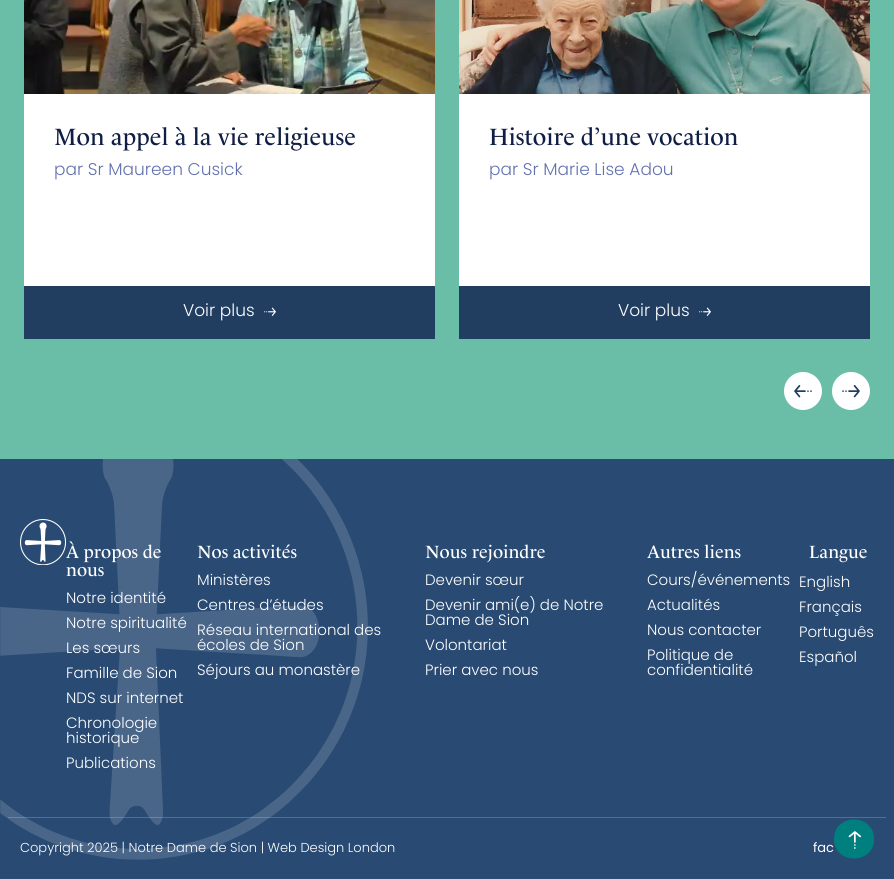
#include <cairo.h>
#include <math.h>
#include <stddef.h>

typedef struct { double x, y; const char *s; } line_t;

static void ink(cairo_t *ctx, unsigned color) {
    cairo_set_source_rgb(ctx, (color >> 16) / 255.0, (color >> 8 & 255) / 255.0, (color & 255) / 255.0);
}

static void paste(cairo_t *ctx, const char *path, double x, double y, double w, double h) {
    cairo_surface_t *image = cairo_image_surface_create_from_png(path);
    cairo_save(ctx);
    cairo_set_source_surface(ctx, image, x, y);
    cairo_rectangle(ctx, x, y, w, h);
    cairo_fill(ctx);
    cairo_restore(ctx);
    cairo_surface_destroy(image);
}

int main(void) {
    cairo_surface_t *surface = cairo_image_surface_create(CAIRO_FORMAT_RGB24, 894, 879);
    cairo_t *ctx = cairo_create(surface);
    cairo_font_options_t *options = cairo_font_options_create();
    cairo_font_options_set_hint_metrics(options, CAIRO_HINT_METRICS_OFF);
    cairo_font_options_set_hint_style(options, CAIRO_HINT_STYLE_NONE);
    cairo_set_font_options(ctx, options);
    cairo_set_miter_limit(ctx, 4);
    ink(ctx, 0x6ABDA7);
    cairo_paint(ctx);
    ink(ctx, 0xFFFFFF);
    cairo_rectangle(ctx, 24, 94, 411, 192);
    cairo_fill(ctx);
    paste(ctx, "media/1.png", 24, 0, 411, 94);
    cairo_select_font_face(ctx, "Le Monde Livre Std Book", CAIRO_FONT_SLANT_NORMAL, CAIRO_FONT_WEIGHT_NORMAL);
    cairo_set_font_size(ctx, 24);
    ink(ctx, 0x0F1E45);
    cairo_move_to(ctx, 54, 145);
    cairo_show_text(ctx, "Mon appel à la vie religieuse");
    cairo_select_font_face(ctx, "Poppins Light", CAIRO_FONT_SLANT_NORMAL, CAIRO_FONT_WEIGHT_NORMAL);
    cairo_set_font_size(ctx, 17);
    ink(ctx, 0x6371B0);
    cairo_move_to(ctx, 54, 175);
    cairo_show_text(ctx, "par Sr Maureen Cusick");
    ink(ctx, 0x213E61);
    cairo_rectangle(ctx, 24, 286, 411, 53);
    cairo_fill(ctx);
    ink(ctx, 0xFFFFFF);
    cairo_move_to(ctx, 183, 316);
    cairo_show_text(ctx, "Voir plus");
    paste(ctx, "media/2.png", 264, 307, 12, 9);
    cairo_rectangle(ctx, 459, 94, 411, 192);
    cairo_fill(ctx);
    paste(ctx, "media/3.png", 459, 0, 411, 94);
    cairo_select_font_face(ctx, "Le Monde Livre Std Book", CAIRO_FONT_SLANT_NORMAL, CAIRO_FONT_WEIGHT_NORMAL);
    cairo_set_font_size(ctx, 24);
    ink(ctx, 0x0F1E45);
    cairo_move_to(ctx, 489, 145);
    cairo_show_text(ctx, "Histoire d’une vocation");
    cairo_select_font_face(ctx, "Poppins Light", CAIRO_FONT_SLANT_NORMAL, CAIRO_FONT_WEIGHT_NORMAL);
    cairo_set_font_size(ctx, 17);
    ink(ctx, 0x6371B0);
    cairo_move_to(ctx, 489, 175);
    cairo_show_text(ctx, "par Sr Marie Lise Adou");
    ink(ctx, 0x213E61);
    cairo_rectangle(ctx, 459, 286, 411, 53);
    cairo_fill(ctx);
    ink(ctx, 0xFFFFFF);
    cairo_move_to(ctx, 618, 316);
    cairo_show_text(ctx, "Voir plus");
    paste(ctx, "media/2.png", 699, 307, 12, 9);
    cairo_arc(ctx, 803, 391, 19, 0, 2 * M_PI);
    cairo_fill(ctx);
    paste(ctx, "media/4.png", 794, 385, 18, 13);
    cairo_arc(ctx, 851, 391, 19, 0, 2 * M_PI);
    cairo_fill(ctx);
    paste(ctx, "media/5.png", 842, 385, 18, 13);
    ink(ctx, 0x294A73);
    cairo_rectangle(ctx, 0, 459, 894, 420);
    cairo_fill(ctx);
    paste(ctx, "media/6.png", 0, 459, 368, 401);
    paste(ctx, "media/7.png", 20, 519, 46, 46);
    cairo_select_font_face(ctx, "Le Monde Livre Std Book", CAIRO_FONT_SLANT_NORMAL, CAIRO_FONT_WEIGHT_NORMAL);
    cairo_set_font_size(ctx, 18);
    ink(ctx, 0xFFFFFF);
    cairo_move_to(ctx, 66, 558);
    cairo_show_text(ctx, "À propos de");
    cairo_move_to(ctx, 66, 576);
    cairo_show_text(ctx, "nous");
    cairo_select_font_face(ctx, "Poppins Light", CAIRO_FONT_SLANT_NORMAL, CAIRO_FONT_WEIGHT_NORMAL);
    cairo_set_font_size(ctx, 15);
    {
        static const line_t items[] = {
            {66, 603, "Notre identité"},
            {66, 628, "Notre spiritualité"},
            {66, 653, "Les sœurs"},
            {66, 678, "Famille de Sion"},
            {66, 703, "NDS sur internet"},
            {66, 728, "Chronologie"},
            {66, 743, "historique"},
            {66, 768, "Publications"},
        };
        for (size_t i = 0; i < sizeof items / sizeof *items; i++) {
            cairo_move_to(ctx, items[i].x, items[i].y);
            cairo_show_text(ctx, items[i].s);
        }
    }
    cairo_select_font_face(ctx, "Le Monde Livre Std Book", CAIRO_FONT_SLANT_NORMAL, CAIRO_FONT_WEIGHT_NORMAL);
    cairo_set_font_size(ctx, 18);
    cairo_move_to(ctx, 197, 558);
    cairo_show_text(ctx, "Nos activités");
    cairo_select_font_face(ctx, "Poppins Light", CAIRO_FONT_SLANT_NORMAL, CAIRO_FONT_WEIGHT_NORMAL);
    cairo_set_font_size(ctx, 15);
    {
        static const line_t items[] = {
            {197, 585, "Ministères"},
            {197, 610, "Centres d’études"},
            {197, 635, "Réseau international des"},
            {197, 650, "écoles de Sion"},
            {197, 675, "Séjours au monastère"},
        };
        for (size_t i = 0; i < sizeof items / sizeof *items; i++) {
            cairo_move_to(ctx, items[i].x, items[i].y);
            cairo_show_text(ctx, items[i].s);
        }
    }
    cairo_select_font_face(ctx, "Le Monde Livre Std Book", CAIRO_FONT_SLANT_NORMAL, CAIRO_FONT_WEIGHT_NORMAL);
    cairo_set_font_size(ctx, 18);
    cairo_move_to(ctx, 425, 558);
    cairo_show_text(ctx, "Nous rejoindre");
    cairo_select_font_face(ctx, "Poppins Light", CAIRO_FONT_SLANT_NORMAL, CAIRO_FONT_WEIGHT_NORMAL);
    cairo_set_font_size(ctx, 15);
    {
        static const line_t items[] = {
            {425, 585, "Devenir sœur"},
            {425, 610, "Devenir ami(e) de Notre"},
            {425, 625, "Dame de Sion"},
            {425, 650, "Volontariat"},
            {425, 675, "Prier avec nous"},
        };
        for (size_t i = 0; i < sizeof items / sizeof *items; i++) {
            cairo_move_to(ctx, items[i].x, items[i].y);
            cairo_show_text(ctx, items[i].s);
        }
    }
    cairo_select_font_face(ctx, "Le Monde Livre Std Book", CAIRO_FONT_SLANT_NORMAL, CAIRO_FONT_WEIGHT_NORMAL);
    cairo_set_font_size(ctx, 18);
    cairo_move_to(ctx, 647, 558);
    cairo_show_text(ctx, "Autres liens");
    cairo_select_font_face(ctx, "Poppins Light", CAIRO_FONT_SLANT_NORMAL, CAIRO_FONT_WEIGHT_NORMAL);
    cairo_set_font_size(ctx, 15);
    {
        static const line_t items[] = {
            {647, 585, "Cours/événements"},
            {647, 610, "Actualités"},
            {647, 635, "Nous contacter"},
            {647, 660, "Politique de"},
            {647, 675, "confidentialité"},
        };
        for (size_t i = 0; i < sizeof items / sizeof *items; i++) {
            cairo_move_to(ctx, items[i].x, items[i].y);
            cairo_show_text(ctx, items[i].s);
        }
    }
    cairo_select_font_face(ctx, "Le Monde Livre Std Book", CAIRO_FONT_SLANT_NORMAL, CAIRO_FONT_WEIGHT_NORMAL);
    cairo_set_font_size(ctx, 18);
    cairo_move_to(ctx, 809, 558);
    cairo_show_text(ctx, "Langue");
    cairo_select_font_face(ctx, "Poppins Light", CAIRO_FONT_SLANT_NORMAL, CAIRO_FONT_WEIGHT_NORMAL);
    cairo_set_font_size(ctx, 15);
    {
        static const line_t items[] = {
            {799, 587, "English"},
            {799, 612, "Français"},
            {799, 637, "Português"},
            {799, 662, "Español"},
        };
        for (size_t i = 0; i < sizeof items / sizeof *items; i++) {
            cairo_move_to(ctx, items[i].x, items[i].y);
            cairo_show_text(ctx, items[i].s);
        }
    }
    cairo_set_source_rgba(ctx, 1, 1, 1, 0.2);
    cairo_rectangle(ctx, 8, 817, 878, 1);
    cairo_fill(ctx);
    cairo_set_font_size(ctx, 13);
    ink(ctx, 0xFFFFFF);
    cairo_move_to(ctx, 20, 852);
    cairo_show_text(ctx, "Copyright 2025 | Notre Dame de Sion | Web Design London");
    cairo_select_font_face(ctx, "Poppins", CAIRO_FONT_SLANT_NORMAL, CAIRO_FONT_WEIGHT_NORMAL);
    cairo_move_to(ctx, 813, 852);
    cairo_show_text(ctx, "fac");
    ink(ctx, 0x007F7F);
    cairo_new_path(ctx);
    cairo_move_to(ctx, 874, 839);
    cairo_curve_to(ctx, 874, 865, 834, 865, 834, 839);
    cairo_curve_to(ctx, 834, 813, 874, 813, 874, 839);
    cairo_close_path(ctx);
    cairo_fill(ctx);
    paste(ctx, "media/8.png", 848, 831, 13, 18);
    cairo_surface_write_to_png(surface, "image.png");
    cairo_font_options_destroy(options);
    cairo_destroy(ctx);
    cairo_surface_destroy(surface);
    return 0;
}
